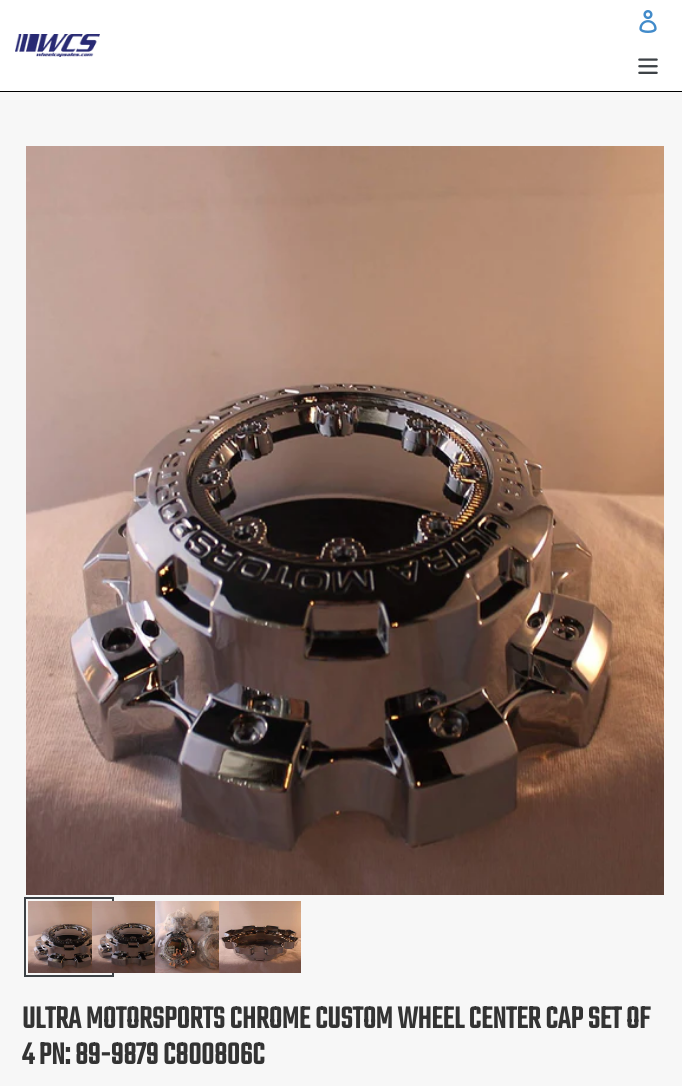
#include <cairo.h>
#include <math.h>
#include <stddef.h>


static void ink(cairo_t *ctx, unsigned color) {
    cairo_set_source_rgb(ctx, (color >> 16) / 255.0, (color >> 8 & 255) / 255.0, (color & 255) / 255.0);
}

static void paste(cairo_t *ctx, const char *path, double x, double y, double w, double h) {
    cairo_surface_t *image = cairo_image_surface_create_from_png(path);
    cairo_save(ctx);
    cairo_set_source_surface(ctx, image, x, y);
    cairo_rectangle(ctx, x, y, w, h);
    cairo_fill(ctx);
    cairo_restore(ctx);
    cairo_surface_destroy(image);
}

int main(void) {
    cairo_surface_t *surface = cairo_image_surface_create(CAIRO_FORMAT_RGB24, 682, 1086);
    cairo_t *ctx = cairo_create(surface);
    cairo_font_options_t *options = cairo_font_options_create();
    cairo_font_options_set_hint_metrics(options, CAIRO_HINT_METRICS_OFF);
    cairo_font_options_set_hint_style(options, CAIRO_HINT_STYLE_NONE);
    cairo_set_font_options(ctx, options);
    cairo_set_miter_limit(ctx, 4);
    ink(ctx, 0x000000);
    cairo_paint(ctx);
    ink(ctx, 0xFFFFFF);
    cairo_rectangle(ctx, 0, 0, 682, 91);
    cairo_fill(ctx);
    paste(ctx, "media/1.png", 15, 34, 85, 23);
    paste(ctx, "media/2.png", 639, 10, 18, 23);
    paste(ctx, "media/3.png", 638, 58, 20, 16);
    ink(ctx, 0xF7F7F7);
    cairo_rectangle(ctx, 0, 92, 682, 994);
    cairo_fill(ctx);
    paste(ctx, "media/4.png", 26, 146, 638, 749);
    cairo_rectangle(ctx, 25, 898, 88, 78);
    ink(ctx, 0x3D4246);
    cairo_stroke(ctx);
    paste(ctx, "media/5.png", 28, 901, 64, 72);
    paste(ctx, "media/6.png", 92, 901, 63, 72);
    paste(ctx, "media/7.png", 155, 901, 64, 72);
    paste(ctx, "media/8.png", 219, 901, 82, 72);
    cairo_select_font_face(ctx, "Teko", CAIRO_FONT_SLANT_NORMAL, CAIRO_FONT_WEIGHT_BOLD);
    cairo_set_font_size(ctx, 33);
    ink(ctx, 0x333333);
    cairo_move_to(ctx, 22, 1028);
    cairo_show_text(ctx, "ULTRA MOTORSPORTS CHROME CUSTOM WHEEL CENTER CAP SET OF");
    cairo_move_to(ctx, 22, 1064);
    cairo_show_text(ctx, "4 PN: 89-9879 C800806C");
    cairo_surface_write_to_png(surface, "image.png");
    cairo_font_options_destroy(options);
    cairo_destroy(ctx);
    cairo_surface_destroy(surface);
    return 0;
}
